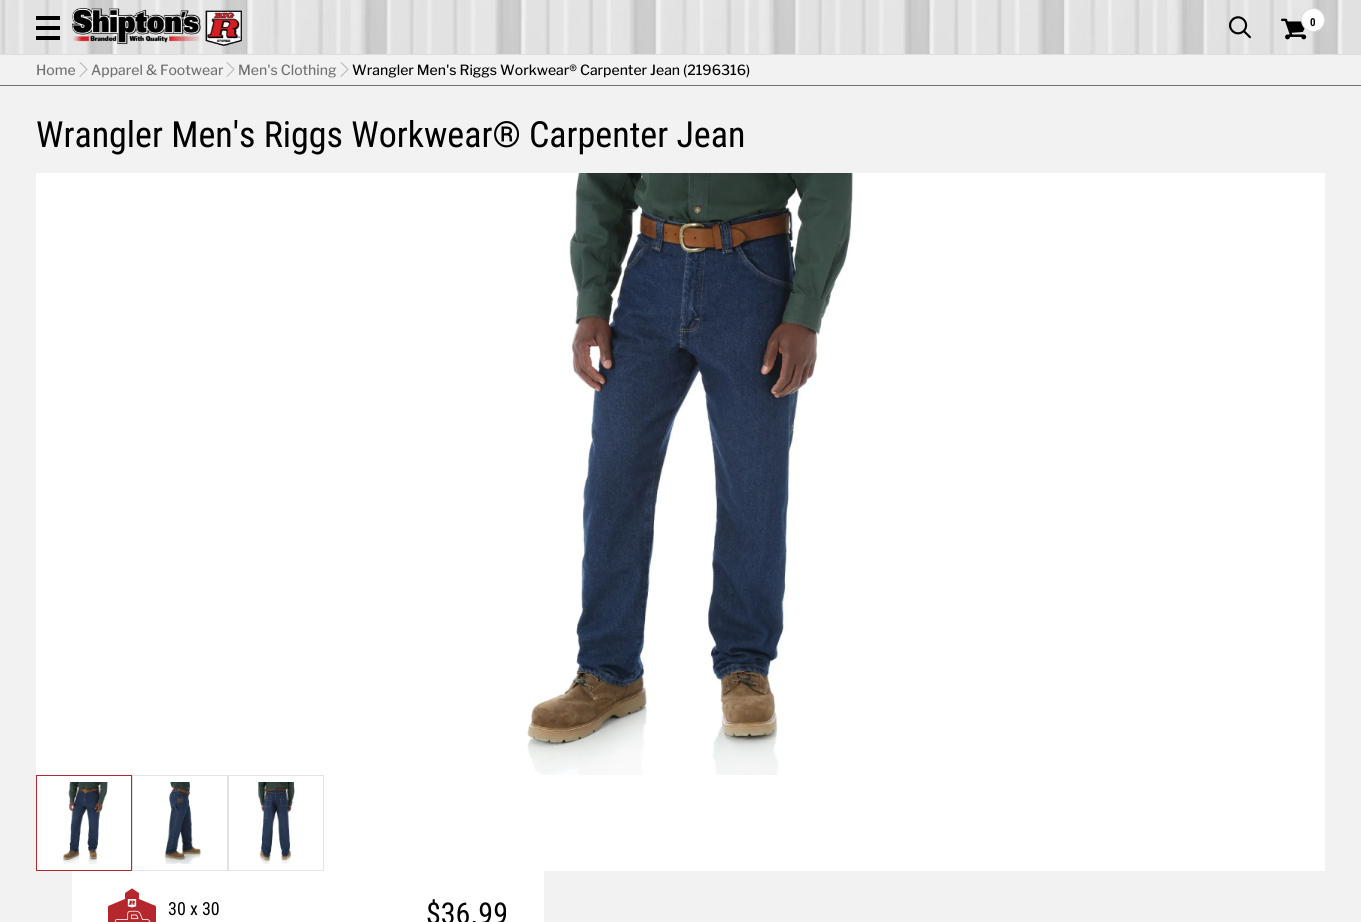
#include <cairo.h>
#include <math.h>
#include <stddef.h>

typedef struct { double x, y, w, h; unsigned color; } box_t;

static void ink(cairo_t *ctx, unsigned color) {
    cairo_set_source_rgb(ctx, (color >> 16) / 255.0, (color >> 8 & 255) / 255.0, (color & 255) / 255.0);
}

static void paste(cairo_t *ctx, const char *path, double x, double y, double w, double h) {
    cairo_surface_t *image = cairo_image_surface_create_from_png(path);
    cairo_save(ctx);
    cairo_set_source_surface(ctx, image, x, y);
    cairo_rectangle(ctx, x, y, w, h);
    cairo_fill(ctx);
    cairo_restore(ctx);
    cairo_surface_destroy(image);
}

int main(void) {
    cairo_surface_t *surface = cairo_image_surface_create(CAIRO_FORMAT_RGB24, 1361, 922);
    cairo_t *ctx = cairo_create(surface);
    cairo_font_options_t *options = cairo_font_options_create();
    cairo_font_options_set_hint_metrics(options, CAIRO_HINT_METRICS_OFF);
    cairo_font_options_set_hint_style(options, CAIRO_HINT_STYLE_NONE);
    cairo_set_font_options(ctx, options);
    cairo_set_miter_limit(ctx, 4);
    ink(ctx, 0xF2F2F2);
    cairo_paint(ctx);
    ink(ctx, 0xE1E1E1);
    cairo_rectangle(ctx, 0, 0, 1361, 54);
    cairo_fill(ctx);
    paste(ctx, "media/1.png", 1, 0, 1342, 54);
    {
        static const box_t items[] = {
            {0, 54, 1361, 1, 0xDDDDDD},
            {36, 16, 24, 4, 0x000000},
            {36, 26, 24, 4, 0x000000},
            {36, 36, 24, 4, 0x000000},
        };
        for (size_t i = 0; i < sizeof items / sizeof *items; i++) {
            ink(ctx, items[i].color);
            cairo_rectangle(ctx, items[i].x, items[i].y, items[i].w, items[i].h);
            cairo_fill(ctx);
        }
    }
    paste(ctx, "media/2.png", 72, 8, 170, 38);
    paste(ctx, "media/3.png", 1229, 16, 22, 23);
    paste(ctx, "media/4.png", 1281, 18, 26, 22);
    ink(ctx, 0xFFFFFF);
    cairo_arc(ctx, 1313, 20, 11.5, 0, 2 * M_PI);
    cairo_fill_preserve(ctx);
    ink(ctx, 0xDDDDDD);
    cairo_set_line_width(ctx, 1);
    cairo_stroke(ctx);
    cairo_select_font_face(ctx, "Roboto Condensed", CAIRO_FONT_SLANT_NORMAL, CAIRO_FONT_WEIGHT_BOLD);
    cairo_set_font_size(ctx, 11);
    ink(ctx, 0x000000);
    cairo_move_to(ctx, 1310, 26);
    cairo_show_text(ctx, "0");
    ink(ctx, 0x707070);
    cairo_rectangle(ctx, 0, 85, 1361, 1);
    cairo_fill(ctx);
    cairo_select_font_face(ctx, "Libre Franklin", CAIRO_FONT_SLANT_NORMAL, CAIRO_FONT_WEIGHT_NORMAL);
    cairo_set_font_size(ctx, 14);
    cairo_move_to(ctx, 36, 75);
    cairo_show_text(ctx, "Home");
    paste(ctx, "media/5.png", 79, 62, 9, 15);
    cairo_move_to(ctx, 91, 75);
    cairo_show_text(ctx, "Apparel & Footwear");
    paste(ctx, "media/5.png", 226, 62, 9, 15);
    cairo_move_to(ctx, 238, 75);
    cairo_show_text(ctx, "Men's Clothing");
    paste(ctx, "media/5.png", 340, 62, 9, 15);
    ink(ctx, 0x000000);
    cairo_move_to(ctx, 352, 75);
    cairo_show_text(ctx, "Wrangler Men's Riggs Workwear® Carpenter Jean (2196316)");
    cairo_select_font_face(ctx, "Roboto Condensed", CAIRO_FONT_SLANT_NORMAL, CAIRO_FONT_WEIGHT_NORMAL);
    cairo_set_font_size(ctx, 36);
    cairo_move_to(ctx, 36, 147);
    cairo_show_text(ctx, "Wrangler Men's Riggs Workwear® Carpenter Jean");
    ink(ctx, 0xFFFFFF);
    cairo_rectangle(ctx, 36, 173, 1289, 698);
    cairo_fill(ctx);
    paste(ctx, "media/6.png", 527, 173, 326, 602);
    cairo_rectangle(ctx, 36.5, 775.5, 95, 95);
    ink(ctx, 0xB4272D);
    cairo_stroke(ctx);
    paste(ctx, "media/7.png", 62, 782, 46, 82);
    cairo_rectangle(ctx, 132.5, 775.5, 95, 95);
    ink(ctx, 0xE3E3E3);
    cairo_stroke(ctx);
    paste(ctx, "media/8.png", 164, 782, 38, 82);
    cairo_rectangle(ctx, 228.5, 775.5, 95, 95);
    cairo_stroke(ctx);
    paste(ctx, "media/9.png", 258, 782, 37, 82);
    ink(ctx, 0xFFFFFF);
    cairo_rectangle(ctx, 72, 871, 472, 51);
    cairo_fill(ctx);
    paste(ctx, "media/10.png", 108, 888, 48, 34);
    cairo_set_font_size(ctx, 18);
    ink(ctx, 0x000000);
    cairo_move_to(ctx, 168, 915);
    cairo_show_text(ctx, "30 x 30");
    cairo_set_font_size(ctx, 30);
    cairo_move_to(ctx, 426, 924);
    cairo_show_text(ctx, "$36.99");
    cairo_surface_write_to_png(surface, "image.png");
    cairo_font_options_destroy(options);
    cairo_destroy(ctx);
    cairo_surface_destroy(surface);
    return 0;
}
